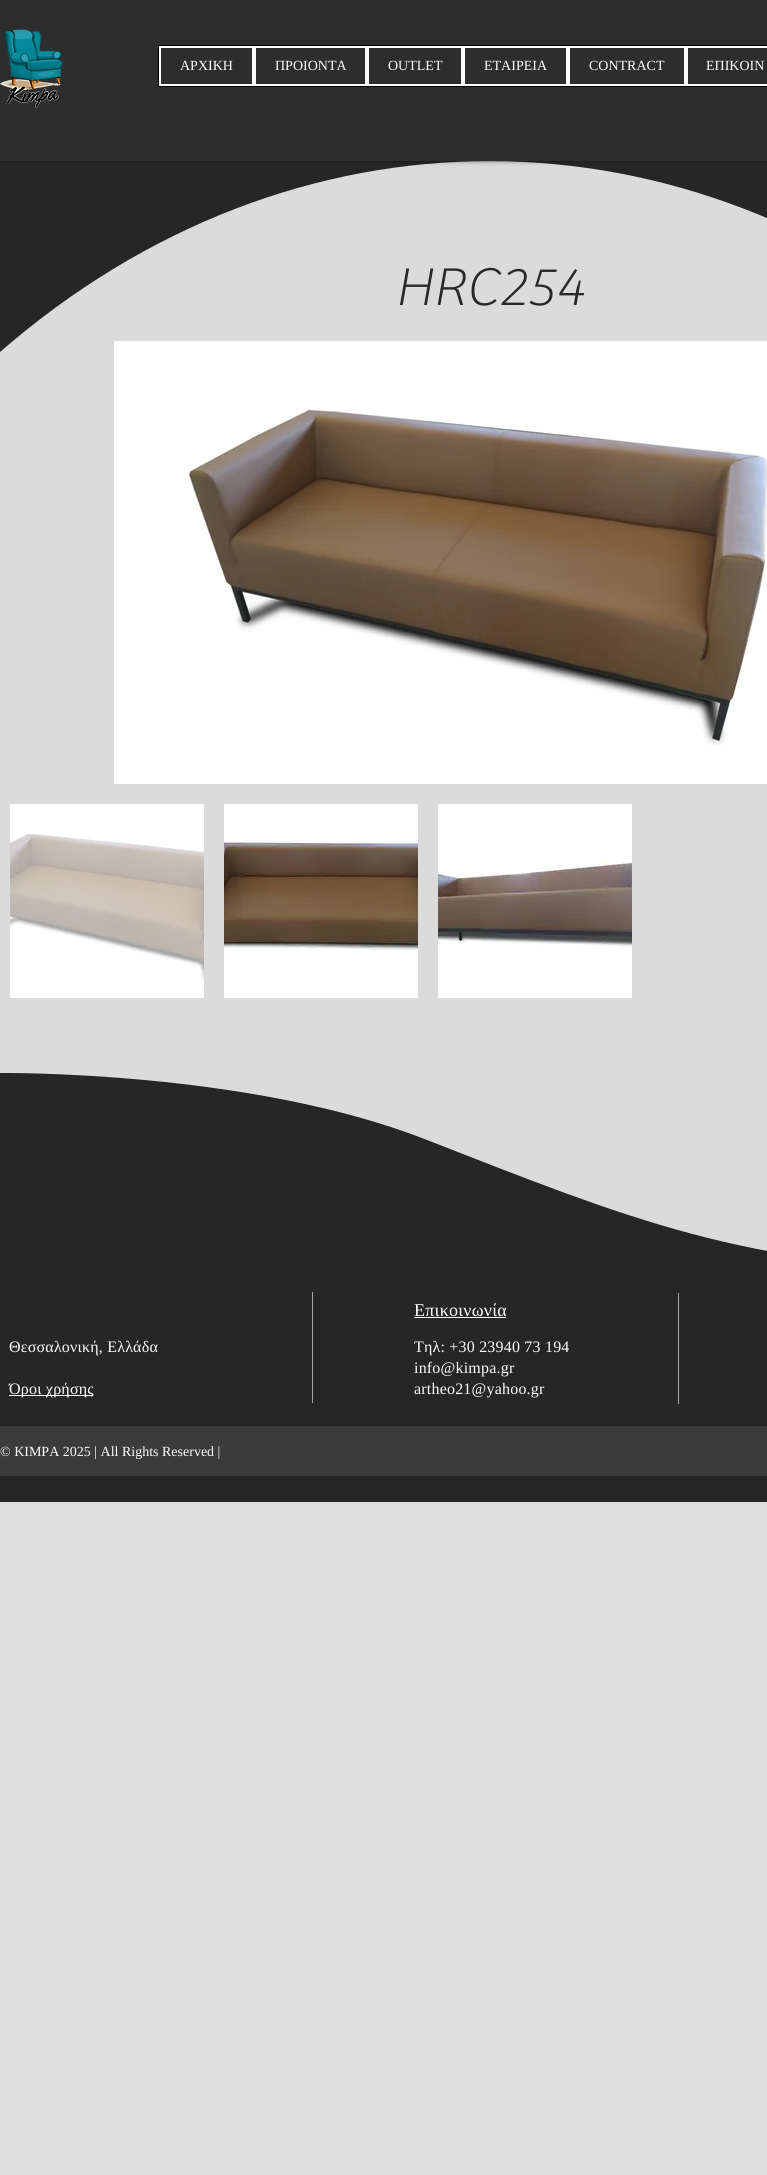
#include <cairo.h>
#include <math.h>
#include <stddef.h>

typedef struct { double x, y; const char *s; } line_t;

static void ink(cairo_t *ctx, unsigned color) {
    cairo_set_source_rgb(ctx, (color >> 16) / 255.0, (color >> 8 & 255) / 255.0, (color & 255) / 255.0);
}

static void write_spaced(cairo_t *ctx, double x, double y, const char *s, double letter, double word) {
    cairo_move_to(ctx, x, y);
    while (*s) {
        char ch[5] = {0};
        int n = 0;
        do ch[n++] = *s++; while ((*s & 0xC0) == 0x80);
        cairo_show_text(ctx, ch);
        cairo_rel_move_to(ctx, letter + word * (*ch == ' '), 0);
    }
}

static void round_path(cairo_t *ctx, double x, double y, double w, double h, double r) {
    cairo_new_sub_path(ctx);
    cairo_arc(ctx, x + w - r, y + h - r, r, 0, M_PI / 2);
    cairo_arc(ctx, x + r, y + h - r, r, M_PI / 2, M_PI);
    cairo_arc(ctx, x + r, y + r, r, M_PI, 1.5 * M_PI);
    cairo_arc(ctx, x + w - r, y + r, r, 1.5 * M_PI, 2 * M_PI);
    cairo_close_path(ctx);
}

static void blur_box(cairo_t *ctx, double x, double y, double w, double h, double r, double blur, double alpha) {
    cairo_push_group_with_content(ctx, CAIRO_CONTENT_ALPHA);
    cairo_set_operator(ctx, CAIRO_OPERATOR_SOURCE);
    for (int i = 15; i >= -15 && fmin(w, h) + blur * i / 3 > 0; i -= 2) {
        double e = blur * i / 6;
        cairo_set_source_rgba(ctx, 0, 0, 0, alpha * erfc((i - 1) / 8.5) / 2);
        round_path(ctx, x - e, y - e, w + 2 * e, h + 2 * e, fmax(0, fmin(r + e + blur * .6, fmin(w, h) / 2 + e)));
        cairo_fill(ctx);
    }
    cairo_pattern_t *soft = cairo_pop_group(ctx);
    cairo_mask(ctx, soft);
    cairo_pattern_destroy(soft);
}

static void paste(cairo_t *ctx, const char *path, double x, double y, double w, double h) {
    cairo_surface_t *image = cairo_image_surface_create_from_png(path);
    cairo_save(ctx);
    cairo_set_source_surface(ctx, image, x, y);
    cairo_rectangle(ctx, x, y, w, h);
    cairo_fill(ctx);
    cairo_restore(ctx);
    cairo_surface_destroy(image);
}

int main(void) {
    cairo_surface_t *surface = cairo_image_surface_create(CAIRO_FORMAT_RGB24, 767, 2175);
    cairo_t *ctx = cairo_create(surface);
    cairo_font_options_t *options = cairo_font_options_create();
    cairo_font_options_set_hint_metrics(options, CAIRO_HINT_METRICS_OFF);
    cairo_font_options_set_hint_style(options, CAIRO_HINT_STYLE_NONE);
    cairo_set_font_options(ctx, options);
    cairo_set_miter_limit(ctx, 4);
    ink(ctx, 0xDEDEDE);
    cairo_paint(ctx);
    ink(ctx, 0xDBDBDB);
    cairo_rectangle(ctx, 0, 161, 767, 1090);
    cairo_fill(ctx);
    ink(ctx, 0x262626);
    cairo_set_fill_rule(ctx, CAIRO_FILL_RULE_EVEN_ODD);
    cairo_new_path(ctx);
    cairo_move_to(ctx, 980, 352);
    cairo_curve_to(ctx, 687, 98, 293, 97, 0, 352);
    cairo_line_to(ctx, 0, 361);
    cairo_line_to(ctx, 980, 361);
    cairo_close_path(ctx);
    cairo_move_to(ctx, 0, 160);
    cairo_line_to(ctx, 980, 160);
    cairo_line_to(ctx, 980, 361);
    cairo_line_to(ctx, 0, 361);
    cairo_close_path(ctx);
    cairo_fill(ctx);
    ink(ctx, 0x000000);
    blur_box(ctx, 0, 0, 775, 161, 0, 2.5, 0.5);
    ink(ctx, 0x2D2D2D);
    cairo_rectangle(ctx, 0, 0, 767, 161);
    cairo_fill(ctx);
    paste(ctx, "media/1.png", 0, 29, 63, 79);
    cairo_rectangle(ctx, 158.5, 45.5, 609, 41);
    ink(ctx, 0x000000);
    cairo_set_line_width(ctx, 1);
    cairo_stroke(ctx);
    cairo_rectangle(ctx, 160, 47, 93, 38);
    ink(ctx, 0xFCFCFC);
    cairo_set_line_width(ctx, 2);
    cairo_stroke(ctx);
    cairo_select_font_face(ctx, "Liberation Serif", CAIRO_FONT_SLANT_NORMAL, CAIRO_FONT_WEIGHT_NORMAL);
    cairo_set_font_size(ctx, 14);
    cairo_move_to(ctx, 180, 70);
    cairo_show_text(ctx, "ΑΡΧΙΚΗ");
    cairo_rectangle(ctx, 255, 47, 111, 38);
    cairo_stroke(ctx);
    cairo_move_to(ctx, 275, 70);
    cairo_show_text(ctx, "ΠΡΟΙΟΝΤΑ");
    cairo_rectangle(ctx, 368, 47, 94, 38);
    cairo_stroke(ctx);
    cairo_move_to(ctx, 388, 70);
    cairo_show_text(ctx, "OUTLET");
    cairo_rectangle(ctx, 464, 47, 103, 38);
    cairo_stroke(ctx);
    cairo_move_to(ctx, 484, 70);
    cairo_show_text(ctx, "ΕΤΑΙΡΕΙΑ");
    cairo_rectangle(ctx, 569, 47, 116, 38);
    cairo_stroke(ctx);
    cairo_move_to(ctx, 589, 70);
    cairo_show_text(ctx, "CONTRACT");
    cairo_rectangle(ctx, 687, 47, 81, 38);
    cairo_stroke(ctx);
    cairo_move_to(ctx, 706, 70);
    cairo_show_text(ctx, "ΕΠΙΚΟΙΝ");
    cairo_select_font_face(ctx, "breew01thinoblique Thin", CAIRO_FONT_SLANT_NORMAL, CAIRO_FONT_WEIGHT_NORMAL);
    cairo_set_font_size(ctx, 55);
    ink(ctx, 0x292929);
    write_spaced(ctx, 395, 305, "HRC254", 1, 0);
    paste(ctx, "media/2.png", 114, 341, 653, 443);
    ink(ctx, 0xFFFFFF);
    cairo_rectangle(ctx, 10, 804, 194, 194);
    cairo_fill(ctx);
    paste(ctx, "media/3.png", 10, 832, 194, 148);
    cairo_rectangle(ctx, 224, 804, 194, 194);
    cairo_fill(ctx);
    paste(ctx, "media/4.png", 224, 838, 194, 114);
    cairo_rectangle(ctx, 438, 804, 194, 194);
    cairo_fill(ctx);
    paste(ctx, "media/5.png", 438, 860, 194, 87);
    ink(ctx, 0x262626);
    cairo_set_fill_rule(ctx, CAIRO_FILL_RULE_WINDING);
    cairo_new_path(ctx);
    cairo_move_to(ctx, 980, 1273);
    cairo_line_to(ctx, 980, 1269);
    cairo_curve_to(ctx, 748, 1269, 627, 1218, 427, 1140);
    cairo_curve_to(ctx, 250, 1070, 0, 1073, 0, 1073);
    cairo_line_to(ctx, 0, 1273);
    cairo_close_path(ctx);
    cairo_fill(ctx);
    cairo_rectangle(ctx, 0, 1273, 767, 229);
    cairo_fill(ctx);
    ink(ctx, 0xA6A6A6);
    cairo_rectangle(ctx, 312, 1292, 1, 111);
    cairo_fill(ctx);
    cairo_select_font_face(ctx, "Liberation Serif", CAIRO_FONT_SLANT_NORMAL, CAIRO_FONT_WEIGHT_NORMAL);
    cairo_set_font_size(ctx, 18);
    ink(ctx, 0xFCFCFC);
    write_spaced(ctx, 414, 1316, "Επικοινωνία", 0.25, 0);
    cairo_rectangle(ctx, 414, 1317, 92, 1);
    cairo_fill(ctx);
    ink(ctx, 0xA6A6A6);
    cairo_rectangle(ctx, 678, 1293, 1, 111);
    cairo_fill(ctx);
    cairo_set_font_size(ctx, 16);
    ink(ctx, 0xFCFCFC);
    {
        static const line_t items[] = {
            {9, 1352, "Θεσσαλονική, Ελλάδα"},
            {414, 1352, "Τηλ: +30 23940 73 194"},
            {414, 1373, "info@kimpa.gr"},
            {414, 1394, "artheo21@yahoo.gr"},
        };
        for (size_t i = 0; i < sizeof items / sizeof *items; i++) {
            write_spaced(ctx, items[i].x, items[i].y, items[i].s, 0.2, 0);
        }
    }
    cairo_rectangle(ctx, 9, 1395, 84, 1);
    cairo_fill(ctx);
    write_spaced(ctx, 9, 1394, "Όροι χρήσης", 0.2, 0);
    ink(ctx, 0x3B3B3B);
    cairo_rectangle(ctx, 0, 1426, 767, 50);
    cairo_fill(ctx);
    cairo_set_font_size(ctx, 14);
    ink(ctx, 0xFCFCFC);
    cairo_move_to(ctx, 0, 1456);
    cairo_show_text(ctx, "© KIMPA 2025 | All Rights Reserved |");
    cairo_surface_write_to_png(surface, "image.png");
    cairo_font_options_destroy(options);
    cairo_destroy(ctx);
    cairo_surface_destroy(surface);
    return 0;
}
